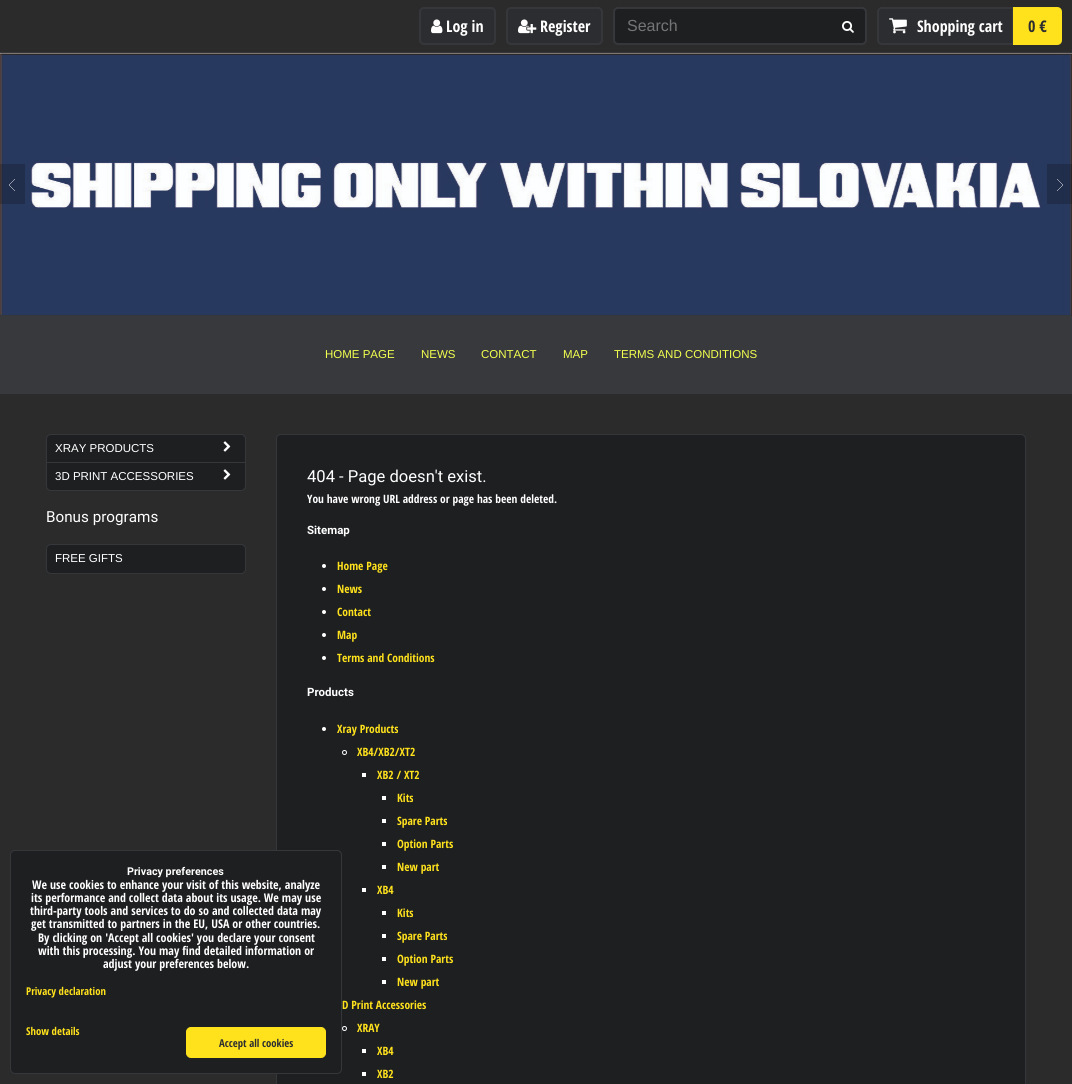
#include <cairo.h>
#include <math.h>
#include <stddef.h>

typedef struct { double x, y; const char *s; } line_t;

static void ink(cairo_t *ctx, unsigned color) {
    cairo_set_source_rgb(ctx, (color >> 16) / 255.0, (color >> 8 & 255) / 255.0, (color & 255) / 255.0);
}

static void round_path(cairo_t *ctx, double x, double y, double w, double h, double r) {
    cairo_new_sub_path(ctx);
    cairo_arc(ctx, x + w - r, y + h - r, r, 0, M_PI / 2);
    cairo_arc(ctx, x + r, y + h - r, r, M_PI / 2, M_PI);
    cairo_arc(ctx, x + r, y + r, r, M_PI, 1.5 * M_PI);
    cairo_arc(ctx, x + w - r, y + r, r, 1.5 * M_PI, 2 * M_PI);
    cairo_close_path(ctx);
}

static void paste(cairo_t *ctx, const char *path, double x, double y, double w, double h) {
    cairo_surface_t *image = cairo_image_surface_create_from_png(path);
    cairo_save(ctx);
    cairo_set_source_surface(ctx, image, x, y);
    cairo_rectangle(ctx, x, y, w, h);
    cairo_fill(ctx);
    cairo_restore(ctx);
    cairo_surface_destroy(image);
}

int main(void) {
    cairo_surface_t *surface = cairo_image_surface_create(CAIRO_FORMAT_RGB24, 1072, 1084);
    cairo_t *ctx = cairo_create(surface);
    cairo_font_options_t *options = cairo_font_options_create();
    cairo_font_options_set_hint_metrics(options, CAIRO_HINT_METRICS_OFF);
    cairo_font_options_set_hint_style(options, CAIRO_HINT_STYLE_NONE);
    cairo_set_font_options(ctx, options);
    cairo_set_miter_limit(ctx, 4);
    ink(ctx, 0x2B2B2B);
    cairo_paint(ctx);
    ink(ctx, 0x2C2D30);
    round_path(ctx, 420, 8, 75, 36, 4);
    cairo_fill_preserve(ctx);
    ink(ctx, 0x35373B);
    cairo_stroke(ctx);
    paste(ctx, "media/1.png", 431, 19, 12, 15);
    cairo_select_font_face(ctx, "Open Sans Condensed", CAIRO_FONT_SLANT_NORMAL, CAIRO_FONT_WEIGHT_BOLD);
    cairo_set_font_size(ctx, 16);
    ink(ctx, 0xFFFFFF);
    cairo_move_to(ctx, 446, 32);
    cairo_show_text(ctx, "Log in");
    ink(ctx, 0x2C2D30);
    round_path(ctx, 507, 8, 95, 36, 4);
    cairo_fill_preserve(ctx);
    ink(ctx, 0x35373B);
    cairo_stroke(ctx);
    paste(ctx, "media/2.png", 518, 19, 19, 15);
    ink(ctx, 0xFFFFFF);
    cairo_move_to(ctx, 540, 32);
    cairo_show_text(ctx, "Register");
    ink(ctx, 0x1E1F21);
    round_path(ctx, 614, 8, 252, 36, 4);
    cairo_fill_preserve(ctx);
    ink(ctx, 0x35373B);
    cairo_stroke(ctx);
    cairo_select_font_face(ctx, "Liberation Sans", CAIRO_FONT_SLANT_NORMAL, CAIRO_FONT_WEIGHT_NORMAL);
    ink(ctx, 0x757575);
    cairo_move_to(ctx, 627, 31);
    cairo_show_text(ctx, "Search");
    paste(ctx, "media/3.png", 842, 21, 12, 12);
    ink(ctx, 0x2C2D30);
    round_path(ctx, 878, 8, 183, 36, 4);
    cairo_fill_preserve(ctx);
    ink(ctx, 0x35373B);
    cairo_stroke(ctx);
    paste(ctx, "media/4.png", 889, 18, 18, 16);
    cairo_select_font_face(ctx, "Open Sans Condensed", CAIRO_FONT_SLANT_NORMAL, CAIRO_FONT_WEIGHT_BOLD);
    ink(ctx, 0xFFFFFF);
    cairo_move_to(ctx, 917, 32);
    cairo_show_text(ctx, "Shopping cart");
    ink(ctx, 0xFFE21C);
    cairo_new_path(ctx);
    cairo_move_to(ctx, 1012, 7);
    cairo_line_to(ctx, 1057, 7);
    cairo_curve_to(ctx, 1060, 7, 1062, 9, 1062, 12);
    cairo_line_to(ctx, 1062, 40);
    cairo_curve_to(ctx, 1062, 43, 1060, 45, 1057, 45);
    cairo_line_to(ctx, 1012, 45);
    cairo_close_path(ctx);
    cairo_fill(ctx);
    ink(ctx, 0x35373B);
    cairo_rectangle(ctx, 1012, 7, 1, 38);
    cairo_fill(ctx);
    ink(ctx, 0x2C2D30);
    cairo_move_to(ctx, 1028, 32);
    cairo_show_text(ctx, "0 €");
    ink(ctx, 0x35373B);
    cairo_rectangle(ctx, 0, 52, 1072, 1);
    cairo_fill(ctx);
    cairo_rectangle(ctx, 0, 315, 1072, 1);
    cairo_fill(ctx);
    paste(ctx, "media/5.png", 0, 53, 1072, 262);
    cairo_set_source_rgba(ctx, 0, 0, 0, 0.2);
    cairo_rectangle(ctx, 0, 164, 25, 40);
    cairo_fill(ctx);
    paste(ctx, "media/6.png", 9, 179, 6, 12);
    cairo_rectangle(ctx, 1047, 164, 25, 40);
    cairo_fill(ctx);
    paste(ctx, "media/7.png", 1057, 179, 6, 12);
    ink(ctx, 0x38393D);
    cairo_rectangle(ctx, 0, 316, 1072, 78);
    cairo_fill(ctx);
    cairo_select_font_face(ctx, "Liberation Sans", CAIRO_FONT_SLANT_NORMAL, CAIRO_FONT_WEIGHT_NORMAL);
    cairo_set_font_size(ctx, 11.5);
    ink(ctx, 0xF3FF4F);
    {
        static const line_t items[] = {
            {325, 358, "HOME PAGE"},
            {421, 358, "NEWS"},
            {481, 358, "CONTACT"},
            {563, 358, "MAP"},
            {614, 358, "TERMS AND CONDITIONS"},
        };
        for (size_t i = 0; i < sizeof items / sizeof *items; i++) {
            cairo_move_to(ctx, items[i].x, items[i].y);
            cairo_show_text(ctx, items[i].s);
        }
    }
    ink(ctx, 0x1E1F21);
    round_path(ctx, 46.5, 434.5, 199, 56, 4.5);
    cairo_fill_preserve(ctx);
    ink(ctx, 0x35373B);
    cairo_set_line_width(ctx, 1);
    cairo_stroke(ctx);
    cairo_rectangle(ctx, 47, 462, 198, 1);
    cairo_fill(ctx);
    ink(ctx, 0xFFFFFF);
    cairo_move_to(ctx, 55, 452);
    cairo_show_text(ctx, "XRAY PRODUCTS");
    paste(ctx, "media/8.png", 223, 441, 8, 11);
    cairo_move_to(ctx, 55, 480);
    cairo_show_text(ctx, "3D PRINT ACCESSORIES");
    paste(ctx, "media/8.png", 223, 469, 8, 11);
    cairo_select_font_face(ctx, "Roboto", CAIRO_FONT_SLANT_NORMAL, CAIRO_FONT_WEIGHT_NORMAL);
    cairo_set_font_size(ctx, 15.25);
    cairo_move_to(ctx, 46, 522);
    cairo_show_text(ctx, "Bonus programs");
    ink(ctx, 0x1E1F21);
    round_path(ctx, 46.5, 544.5, 199, 29, 4.5);
    cairo_fill_preserve(ctx);
    ink(ctx, 0x35373B);
    cairo_stroke(ctx);
    cairo_select_font_face(ctx, "Liberation Sans", CAIRO_FONT_SLANT_NORMAL, CAIRO_FONT_WEIGHT_NORMAL);
    cairo_set_font_size(ctx, 11.5);
    ink(ctx, 0xFFFFFF);
    cairo_move_to(ctx, 55, 562);
    cairo_show_text(ctx, "FREE GIFTS");
    ink(ctx, 0x1E1F21);
    round_path(ctx, 276.5, 434.5, 749, 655, 4.5);
    cairo_fill_preserve(ctx);
    ink(ctx, 0x35373B);
    cairo_stroke(ctx);
    cairo_select_font_face(ctx, "Roboto", CAIRO_FONT_SLANT_NORMAL, CAIRO_FONT_WEIGHT_NORMAL);
    cairo_set_font_size(ctx, 16.6);
    ink(ctx, 0xFFFFFF);
    cairo_move_to(ctx, 307, 482);
    cairo_show_text(ctx, "404 - Page doesn't exist.");
    cairo_select_font_face(ctx, "Open Sans Condensed", CAIRO_FONT_SLANT_NORMAL, CAIRO_FONT_WEIGHT_BOLD);
    cairo_set_font_size(ctx, 11.5);
    cairo_move_to(ctx, 307, 503);
    cairo_show_text(ctx, "You have wrong URL address or page has been deleted.");
    cairo_select_font_face(ctx, "Roboto", CAIRO_FONT_SLANT_NORMAL, CAIRO_FONT_WEIGHT_BOLD);
    cairo_move_to(ctx, 307, 534);
    cairo_show_text(ctx, "Sitemap");
    cairo_new_path(ctx);
    cairo_arc(ctx, 324, 566, 2, 0, 2 * M_PI);
    cairo_fill(ctx);
    cairo_select_font_face(ctx, "Open Sans Condensed", CAIRO_FONT_SLANT_NORMAL, CAIRO_FONT_WEIGHT_BOLD);
    ink(ctx, 0xFFE21C);
    cairo_move_to(ctx, 337, 570);
    cairo_show_text(ctx, "Home Page");
    ink(ctx, 0xFFFFFF);
    cairo_new_path(ctx);
    cairo_arc(ctx, 324, 589, 2, 0, 2 * M_PI);
    cairo_fill(ctx);
    ink(ctx, 0xFFE21C);
    cairo_move_to(ctx, 337, 593);
    cairo_show_text(ctx, "News");
    ink(ctx, 0xFFFFFF);
    cairo_new_path(ctx);
    cairo_arc(ctx, 324, 612, 2, 0, 2 * M_PI);
    cairo_fill(ctx);
    ink(ctx, 0xFFE21C);
    cairo_move_to(ctx, 337, 616);
    cairo_show_text(ctx, "Contact");
    ink(ctx, 0xFFFFFF);
    cairo_new_path(ctx);
    cairo_arc(ctx, 324, 635, 2, 0, 2 * M_PI);
    cairo_fill(ctx);
    ink(ctx, 0xFFE21C);
    cairo_move_to(ctx, 337, 639);
    cairo_show_text(ctx, "Map");
    ink(ctx, 0xFFFFFF);
    cairo_new_path(ctx);
    cairo_arc(ctx, 324, 658, 2, 0, 2 * M_PI);
    cairo_fill(ctx);
    ink(ctx, 0xFFE21C);
    cairo_move_to(ctx, 337, 662);
    cairo_show_text(ctx, "Terms and Conditions");
    cairo_select_font_face(ctx, "Roboto", CAIRO_FONT_SLANT_NORMAL, CAIRO_FONT_WEIGHT_BOLD);
    ink(ctx, 0xFFFFFF);
    cairo_move_to(ctx, 307, 696);
    cairo_show_text(ctx, "Products");
    cairo_new_path(ctx);
    cairo_arc(ctx, 324, 729, 2, 0, 2 * M_PI);
    cairo_fill(ctx);
    cairo_select_font_face(ctx, "Open Sans Condensed", CAIRO_FONT_SLANT_NORMAL, CAIRO_FONT_WEIGHT_BOLD);
    ink(ctx, 0xFFE21C);
    cairo_move_to(ctx, 337, 733);
    cairo_show_text(ctx, "Xray Products");
    cairo_new_path(ctx);
    cairo_arc(ctx, 344.5, 752.5, 2, 0, 2 * M_PI);
    ink(ctx, 0xFFFFFF);
    cairo_stroke(ctx);
    ink(ctx, 0xFFE21C);
    cairo_move_to(ctx, 357, 756);
    cairo_show_text(ctx, "XB4/XB2/XT2");
    ink(ctx, 0xFFFFFF);
    cairo_rectangle(ctx, 362, 773, 4, 4);
    cairo_fill(ctx);
    ink(ctx, 0xFFE21C);
    cairo_move_to(ctx, 377, 779);
    cairo_show_text(ctx, "XB2 / XT2");
    ink(ctx, 0xFFFFFF);
    cairo_rectangle(ctx, 382, 796, 4, 4);
    cairo_fill(ctx);
    ink(ctx, 0xFFE21C);
    cairo_move_to(ctx, 397, 802);
    cairo_show_text(ctx, "Kits");
    ink(ctx, 0xFFFFFF);
    cairo_rectangle(ctx, 382, 819, 4, 4);
    cairo_fill(ctx);
    ink(ctx, 0xFFE21C);
    cairo_move_to(ctx, 397, 825);
    cairo_show_text(ctx, "Spare Parts");
    ink(ctx, 0xFFFFFF);
    cairo_rectangle(ctx, 382, 842, 4, 4);
    cairo_fill(ctx);
    ink(ctx, 0xFFE21C);
    cairo_move_to(ctx, 397, 848);
    cairo_show_text(ctx, "Option Parts");
    ink(ctx, 0xFFFFFF);
    cairo_rectangle(ctx, 382, 865, 4, 4);
    cairo_fill(ctx);
    ink(ctx, 0xFFE21C);
    cairo_move_to(ctx, 397, 871);
    cairo_show_text(ctx, "New part");
    ink(ctx, 0xFFFFFF);
    cairo_rectangle(ctx, 362, 888, 4, 4);
    cairo_fill(ctx);
    ink(ctx, 0xFFE21C);
    cairo_move_to(ctx, 377, 894);
    cairo_show_text(ctx, "XB4");
    ink(ctx, 0xFFFFFF);
    cairo_rectangle(ctx, 382, 911, 4, 4);
    cairo_fill(ctx);
    ink(ctx, 0xFFE21C);
    cairo_move_to(ctx, 397, 917);
    cairo_show_text(ctx, "Kits");
    ink(ctx, 0xFFFFFF);
    cairo_rectangle(ctx, 382, 934, 4, 4);
    cairo_fill(ctx);
    ink(ctx, 0xFFE21C);
    cairo_move_to(ctx, 397, 940);
    cairo_show_text(ctx, "Spare Parts");
    ink(ctx, 0xFFFFFF);
    cairo_rectangle(ctx, 382, 957, 4, 4);
    cairo_fill(ctx);
    ink(ctx, 0xFFE21C);
    cairo_move_to(ctx, 397, 963);
    cairo_show_text(ctx, "Option Parts");
    ink(ctx, 0xFFFFFF);
    cairo_rectangle(ctx, 382, 980, 4, 4);
    cairo_fill(ctx);
    ink(ctx, 0xFFE21C);
    cairo_move_to(ctx, 397, 986);
    cairo_show_text(ctx, "New part");
    cairo_move_to(ctx, 342, 1009);
    cairo_show_text(ctx, "D Print Accessories");
    cairo_new_path(ctx);
    cairo_arc(ctx, 344.5, 1028.5, 2, 0, 2 * M_PI);
    ink(ctx, 0xFFFFFF);
    cairo_stroke(ctx);
    ink(ctx, 0xFFE21C);
    cairo_move_to(ctx, 357, 1032);
    cairo_show_text(ctx, "XRAY");
    ink(ctx, 0xFFFFFF);
    cairo_rectangle(ctx, 362, 1049, 4, 4);
    cairo_fill(ctx);
    ink(ctx, 0xFFE21C);
    cairo_move_to(ctx, 377, 1055);
    cairo_show_text(ctx, "XB4");
    ink(ctx, 0xFFFFFF);
    cairo_rectangle(ctx, 362, 1072, 4, 4);
    cairo_fill(ctx);
    ink(ctx, 0xFFE21C);
    cairo_move_to(ctx, 377, 1078);
    cairo_show_text(ctx, "XB2");
    ink(ctx, 0x1E1F21);
    round_path(ctx, 10.5, 850.5, 331, 223, 4.5);
    cairo_fill_preserve(ctx);
    ink(ctx, 0x35373B);
    cairo_stroke(ctx);
    cairo_select_font_face(ctx, "Roboto", CAIRO_FONT_SLANT_NORMAL, CAIRO_FONT_WEIGHT_BOLD);
    cairo_set_font_size(ctx, 10.75);
    ink(ctx, 0xFFFFFF);
    cairo_move_to(ctx, 127, 875);
    cairo_show_text(ctx, "Privacy preferences");
    cairo_select_font_face(ctx, "Open Sans Condensed", CAIRO_FONT_SLANT_NORMAL, CAIRO_FONT_WEIGHT_BOLD);
    cairo_set_font_size(ctx, 12);
    {
        static const line_t items[] = {
            {32, 889, "We use cookies to enhance your visit of this website, analyze"},
            {31, 902, "its performance and collect data about its usage. We may use"},
            {30, 915, "third-party tools and services to do so and collected data may"},
            {31, 928, "get transmitted to partners in the EU, USA or other countries."},
            {38, 942, "By clicking on 'Accept all cookies' you declare your consent"},
            {38, 955, "with this processing. You may find detailed information or"},
            {103, 968, "adjust your preferences below."},
        };
        for (size_t i = 0; i < sizeof items / sizeof *items; i++) {
            cairo_move_to(ctx, items[i].x, items[i].y);
            cairo_show_text(ctx, items[i].s);
        }
    }
    cairo_set_font_size(ctx, 10.75);
    ink(ctx, 0xFFE21C);
    cairo_move_to(ctx, 26, 995);
    cairo_show_text(ctx, "Privacy declaration");
    cairo_move_to(ctx, 26, 1035);
    cairo_show_text(ctx, "Show details");
    round_path(ctx, 186.5, 1027.5, 139, 30, 4.5);
    cairo_fill_preserve(ctx);
    cairo_stroke(ctx);
    ink(ctx, 0x2C2D30);
    cairo_move_to(ctx, 219, 1047);
    cairo_show_text(ctx, "Accept all cookies");
    cairo_surface_write_to_png(surface, "image.png");
    cairo_font_options_destroy(options);
    cairo_destroy(ctx);
    cairo_surface_destroy(surface);
    return 0;
}
